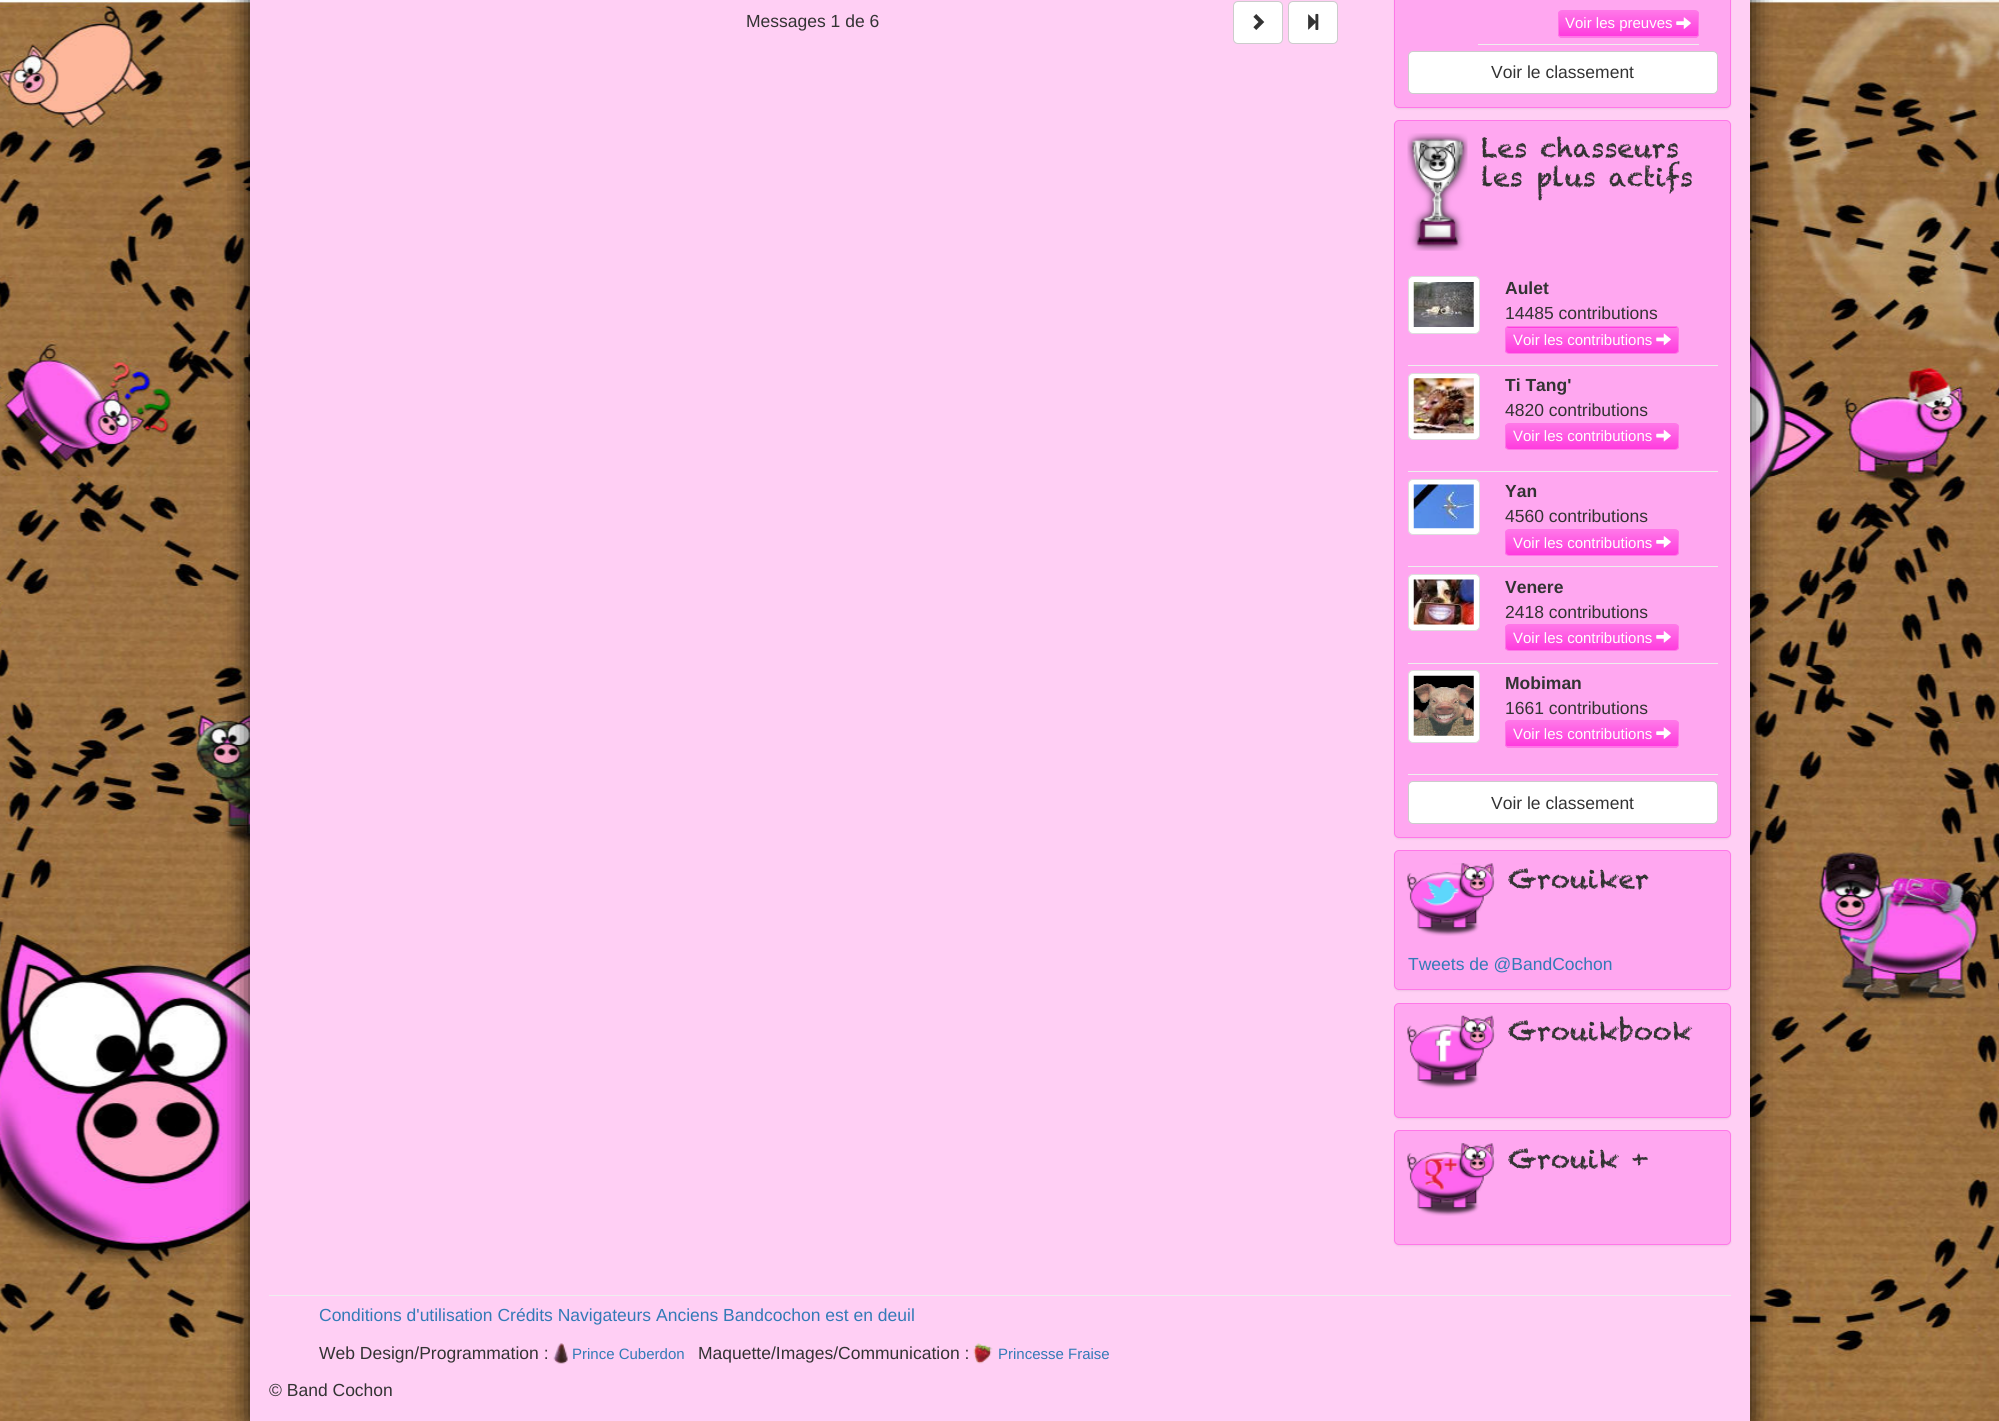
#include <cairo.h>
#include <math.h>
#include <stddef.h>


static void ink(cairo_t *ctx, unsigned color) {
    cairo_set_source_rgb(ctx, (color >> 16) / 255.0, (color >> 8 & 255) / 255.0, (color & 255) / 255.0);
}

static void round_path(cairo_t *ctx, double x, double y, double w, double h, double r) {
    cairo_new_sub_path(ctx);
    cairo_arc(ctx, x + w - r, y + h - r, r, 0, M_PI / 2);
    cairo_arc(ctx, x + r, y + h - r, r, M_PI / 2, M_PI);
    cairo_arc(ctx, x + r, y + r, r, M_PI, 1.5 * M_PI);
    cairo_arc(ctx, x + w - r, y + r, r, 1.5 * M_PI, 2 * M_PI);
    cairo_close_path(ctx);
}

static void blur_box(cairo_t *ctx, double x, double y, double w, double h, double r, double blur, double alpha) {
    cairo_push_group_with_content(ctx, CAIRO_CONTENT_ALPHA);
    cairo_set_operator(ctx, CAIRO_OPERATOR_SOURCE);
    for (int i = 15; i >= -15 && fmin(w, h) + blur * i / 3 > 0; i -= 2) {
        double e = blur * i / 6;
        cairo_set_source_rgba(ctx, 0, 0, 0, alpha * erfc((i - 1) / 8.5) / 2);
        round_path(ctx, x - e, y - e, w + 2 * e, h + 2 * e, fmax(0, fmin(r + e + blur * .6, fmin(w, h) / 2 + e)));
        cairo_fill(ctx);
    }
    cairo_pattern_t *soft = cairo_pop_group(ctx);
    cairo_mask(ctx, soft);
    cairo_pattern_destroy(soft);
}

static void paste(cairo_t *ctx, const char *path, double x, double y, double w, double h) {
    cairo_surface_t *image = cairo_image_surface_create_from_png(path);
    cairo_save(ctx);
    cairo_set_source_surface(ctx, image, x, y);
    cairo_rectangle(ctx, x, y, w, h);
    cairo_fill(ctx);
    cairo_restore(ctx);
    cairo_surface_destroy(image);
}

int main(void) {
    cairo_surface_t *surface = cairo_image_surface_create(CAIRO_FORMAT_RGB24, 1999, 1421);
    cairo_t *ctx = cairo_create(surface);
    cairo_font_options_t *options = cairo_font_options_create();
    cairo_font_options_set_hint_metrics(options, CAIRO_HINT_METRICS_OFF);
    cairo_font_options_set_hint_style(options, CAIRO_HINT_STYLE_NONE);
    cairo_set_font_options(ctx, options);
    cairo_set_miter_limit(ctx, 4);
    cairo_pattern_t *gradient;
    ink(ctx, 0xFFFFFF);
    cairo_paint(ctx);
    paste(ctx, "media/1.png", 0, 0, 1999, 1421);
    ink(ctx, 0x000000);
    blur_box(ctx, 250, -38, 1500, 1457, 0, 12.5, 0.5);
    blur_box(ctx, 250, -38, 1500, 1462, 0, 12.5, 0.5);
    ink(ctx, 0xFFCFF4);
    cairo_rectangle(ctx, 250, 0, 1500, 1421);
    cairo_fill(ctx);
    cairo_select_font_face(ctx, "Liberation Sans", CAIRO_FONT_SLANT_NORMAL, CAIRO_FONT_WEIGHT_NORMAL);
    cairo_set_font_size(ctx, 17.5);
    ink(ctx, 0x333333);
    cairo_move_to(ctx, 746, 27);
    cairo_show_text(ctx, "Messages 1 de 6");
    ink(ctx, 0xFFFFFF);
    round_path(ctx, 1233.5, 1.5, 49, 42, 4.5);
    cairo_fill_preserve(ctx);
    ink(ctx, 0xCCCCCC);
    cairo_set_line_width(ctx, 1);
    cairo_stroke(ctx);
    paste(ctx, "media/2.png", 1253, 14, 12, 16);
    ink(ctx, 0xFFFFFF);
    round_path(ctx, 1288.5, 1.5, 49, 42, 4.5);
    cairo_fill_preserve(ctx);
    ink(ctx, 0xCCCCCC);
    cairo_stroke(ctx);
    paste(ctx, "media/3.png", 1308, 13, 11, 17);
    ink(ctx, 0x000000);
    blur_box(ctx, 1394, -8, 337, 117, 5, 1, 0.07);
    ink(ctx, 0xFFA7F0);
    round_path(ctx, 1394.5, -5.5, 336, 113, 4.5);
    cairo_fill_preserve(ctx);
    ink(ctx, 0xFF77E8);
    cairo_stroke(ctx);
    cairo_save(ctx);
    round_path(ctx, 1558, 10, 141, 28, 4);
    cairo_clip(ctx);
    gradient = cairo_pattern_create_linear(1628, 11, 1628, 36);
    cairo_pattern_add_color_stop_rgba(gradient, 0, 1, 0.467, 0.91, 1);
    cairo_pattern_add_color_stop_rgba(gradient, 1, 1, 0.231, 0.871, 1);
    cairo_set_source(ctx, gradient);
    cairo_pattern_destroy(gradient);
    cairo_rectangle(ctx, 1558, 11, 141, 25);
    cairo_fill(ctx);
    gradient = cairo_pattern_create_linear(1628, 36, 1628, 61);
    cairo_pattern_add_color_stop_rgba(gradient, 0, 1, 0.467, 0.91, 1);
    cairo_pattern_add_color_stop_rgba(gradient, 1, 1, 0.231, 0.871, 1);
    cairo_set_source(ctx, gradient);
    cairo_pattern_destroy(gradient);
    cairo_rectangle(ctx, 1558, 36, 141, 2);
    cairo_fill(ctx);
    cairo_restore(ctx);
    round_path(ctx, 1558.5, 10.5, 140, 27, 3.5);
    cairo_stroke(ctx);
    cairo_set_font_size(ctx, 15);
    ink(ctx, 0xFFFFFF);
    cairo_move_to(ctx, 1565, 28);
    cairo_show_text(ctx, "Voir les preuves");
    paste(ctx, "media/4.png", 1676, 17, 15, 12);
    ink(ctx, 0xEEEEEE);
    cairo_rectangle(ctx, 1478, 44, 221, 1);
    cairo_fill(ctx);
    ink(ctx, 0xFFFFFF);
    round_path(ctx, 1408.5, 51.5, 309, 42, 4.5);
    cairo_fill_preserve(ctx);
    ink(ctx, 0xCCCCCC);
    cairo_stroke(ctx);
    cairo_set_font_size(ctx, 17.5);
    ink(ctx, 0x333333);
    cairo_move_to(ctx, 1491, 78);
    cairo_show_text(ctx, "Voir le classement");
    ink(ctx, 0x000000);
    blur_box(ctx, 1394, 121, 337, 718, 5, 1, 0.07);
    ink(ctx, 0xFFA7F0);
    round_path(ctx, 1394.5, 120.5, 336, 717, 4.5);
    cairo_fill_preserve(ctx);
    ink(ctx, 0xFF77E8);
    cairo_stroke(ctx);
    paste(ctx, "media/5.png", 1407, 133, 61, 118);
    cairo_select_font_face(ctx, "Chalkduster", CAIRO_FONT_SLANT_NORMAL, CAIRO_FONT_WEIGHT_NORMAL);
    cairo_set_font_size(ctx, 26.25);
    ink(ctx, 0x333333);
    cairo_move_to(ctx, 1481, 157);
    cairo_show_text(ctx, "Les chasseurs");
    cairo_move_to(ctx, 1481, 186);
    cairo_show_text(ctx, "les plus actifs");
    ink(ctx, 0xFFFFFF);
    round_path(ctx, 1408.5, 276.5, 71, 57, 4.5);
    cairo_fill_preserve(ctx);
    ink(ctx, 0xDDDDDD);
    cairo_stroke(ctx);
    paste(ctx, "media/6.png", 1413, 282, 61, 45);
    cairo_select_font_face(ctx, "Liberation Sans", CAIRO_FONT_SLANT_NORMAL, CAIRO_FONT_WEIGHT_BOLD);
    cairo_set_font_size(ctx, 17.5);
    ink(ctx, 0x333333);
    cairo_move_to(ctx, 1505, 294);
    cairo_show_text(ctx, "Aulet");
    cairo_select_font_face(ctx, "Liberation Sans", CAIRO_FONT_SLANT_NORMAL, CAIRO_FONT_WEIGHT_NORMAL);
    cairo_move_to(ctx, 1505, 319);
    cairo_show_text(ctx, "14485 contributions");
    cairo_save(ctx);
    round_path(ctx, 1505, 326, 174, 28, 4);
    cairo_clip(ctx);
    gradient = cairo_pattern_create_linear(1592, 303, 1592, 328);
    cairo_pattern_add_color_stop_rgba(gradient, 0, 1, 0.467, 0.91, 1);
    cairo_pattern_add_color_stop_rgba(gradient, 1, 1, 0.231, 0.871, 1);
    cairo_set_source(ctx, gradient);
    cairo_pattern_destroy(gradient);
    cairo_rectangle(ctx, 1505, 326, 174, 2);
    cairo_fill(ctx);
    gradient = cairo_pattern_create_linear(1592, 328, 1592, 353);
    cairo_pattern_add_color_stop_rgba(gradient, 0, 1, 0.467, 0.91, 1);
    cairo_pattern_add_color_stop_rgba(gradient, 1, 1, 0.231, 0.871, 1);
    cairo_set_source(ctx, gradient);
    cairo_pattern_destroy(gradient);
    cairo_rectangle(ctx, 1505, 328, 174, 25);
    cairo_fill(ctx);
    cairo_restore(ctx);
    round_path(ctx, 1505.5, 326.5, 173, 27, 3.5);
    ink(ctx, 0xFF77E8);
    cairo_stroke(ctx);
    cairo_set_font_size(ctx, 15);
    ink(ctx, 0xFFFFFF);
    cairo_move_to(ctx, 1513, 345);
    cairo_show_text(ctx, "Voir les contributions");
    paste(ctx, "media/7.png", 1656, 333, 15, 13);
    ink(ctx, 0xEEEEEE);
    cairo_rectangle(ctx, 1408, 365, 310, 1);
    cairo_fill(ctx);
    ink(ctx, 0xFFFFFF);
    round_path(ctx, 1408.5, 373.5, 71, 66, 4.5);
    cairo_fill_preserve(ctx);
    ink(ctx, 0xDDDDDD);
    cairo_stroke(ctx);
    paste(ctx, "media/8.png", 1413, 378, 61, 56);
    cairo_select_font_face(ctx, "Liberation Sans", CAIRO_FONT_SLANT_NORMAL, CAIRO_FONT_WEIGHT_BOLD);
    cairo_set_font_size(ctx, 17.5);
    ink(ctx, 0x333333);
    cairo_move_to(ctx, 1505, 391);
    cairo_show_text(ctx, "Ti Tang'");
    cairo_select_font_face(ctx, "Liberation Sans", CAIRO_FONT_SLANT_NORMAL, CAIRO_FONT_WEIGHT_NORMAL);
    cairo_move_to(ctx, 1505, 416);
    cairo_show_text(ctx, "4820 contributions");
    cairo_save(ctx);
    round_path(ctx, 1505, 423, 174, 27, 4);
    cairo_clip(ctx);
    gradient = cairo_pattern_create_linear(1592, 424, 1592, 449);
    cairo_pattern_add_color_stop_rgba(gradient, 0, 1, 0.467, 0.91, 1);
    cairo_pattern_add_color_stop_rgba(gradient, 1, 1, 0.231, 0.871, 1);
    cairo_set_source(ctx, gradient);
    cairo_pattern_destroy(gradient);
    cairo_rectangle(ctx, 1505, 424, 174, 25);
    cairo_fill(ctx);
    cairo_restore(ctx);
    round_path(ctx, 1505.5, 423.5, 173, 26, 3.5);
    ink(ctx, 0xFF77E8);
    cairo_stroke(ctx);
    cairo_set_font_size(ctx, 15);
    ink(ctx, 0xFFFFFF);
    cairo_move_to(ctx, 1513, 441);
    cairo_show_text(ctx, "Voir les contributions");
    paste(ctx, "media/9.png", 1656, 429, 15, 13);
    ink(ctx, 0xEEEEEE);
    cairo_rectangle(ctx, 1408, 471, 310, 1);
    cairo_fill(ctx);
    ink(ctx, 0xFFFFFF);
    round_path(ctx, 1408.5, 479.5, 71, 55, 4.5);
    cairo_fill_preserve(ctx);
    ink(ctx, 0xDDDDDD);
    cairo_stroke(ctx);
    paste(ctx, "media/10.png", 1413, 484, 61, 45);
    cairo_select_font_face(ctx, "Liberation Sans", CAIRO_FONT_SLANT_NORMAL, CAIRO_FONT_WEIGHT_BOLD);
    cairo_set_font_size(ctx, 17.5);
    ink(ctx, 0x333333);
    cairo_move_to(ctx, 1505, 497);
    cairo_show_text(ctx, "Yan");
    cairo_select_font_face(ctx, "Liberation Sans", CAIRO_FONT_SLANT_NORMAL, CAIRO_FONT_WEIGHT_NORMAL);
    cairo_move_to(ctx, 1505, 522);
    cairo_show_text(ctx, "4560 contributions");
    cairo_save(ctx);
    round_path(ctx, 1505, 529, 174, 27, 4);
    cairo_clip(ctx);
    gradient = cairo_pattern_create_linear(1592, 530, 1592, 555);
    cairo_pattern_add_color_stop_rgba(gradient, 0, 1, 0.467, 0.91, 1);
    cairo_pattern_add_color_stop_rgba(gradient, 1, 1, 0.231, 0.871, 1);
    cairo_set_source(ctx, gradient);
    cairo_pattern_destroy(gradient);
    cairo_rectangle(ctx, 1505, 530, 174, 25);
    cairo_fill(ctx);
    cairo_restore(ctx);
    round_path(ctx, 1505.5, 529.5, 173, 26, 3.5);
    ink(ctx, 0xFF77E8);
    cairo_stroke(ctx);
    cairo_set_font_size(ctx, 15);
    ink(ctx, 0xFFFFFF);
    cairo_move_to(ctx, 1513, 548);
    cairo_show_text(ctx, "Voir les contributions");
    paste(ctx, "media/11.png", 1656, 536, 15, 12);
    ink(ctx, 0xEEEEEE);
    cairo_rectangle(ctx, 1408, 566, 310, 1);
    cairo_fill(ctx);
    ink(ctx, 0xFFFFFF);
    round_path(ctx, 1408.5, 574.5, 71, 56, 4.5);
    cairo_fill_preserve(ctx);
    ink(ctx, 0xDDDDDD);
    cairo_stroke(ctx);
    paste(ctx, "media/12.png", 1413, 579, 61, 46);
    cairo_select_font_face(ctx, "Liberation Sans", CAIRO_FONT_SLANT_NORMAL, CAIRO_FONT_WEIGHT_BOLD);
    cairo_set_font_size(ctx, 17.5);
    ink(ctx, 0x333333);
    cairo_move_to(ctx, 1505, 593);
    cairo_show_text(ctx, "Venere");
    cairo_select_font_face(ctx, "Liberation Sans", CAIRO_FONT_SLANT_NORMAL, CAIRO_FONT_WEIGHT_NORMAL);
    cairo_move_to(ctx, 1505, 618);
    cairo_show_text(ctx, "2418 contributions");
    cairo_save(ctx);
    round_path(ctx, 1505, 624, 174, 27, 4);
    cairo_clip(ctx);
    gradient = cairo_pattern_create_linear(1592, 625, 1592, 650);
    cairo_pattern_add_color_stop_rgba(gradient, 0, 1, 0.467, 0.91, 1);
    cairo_pattern_add_color_stop_rgba(gradient, 1, 1, 0.231, 0.871, 1);
    cairo_set_source(ctx, gradient);
    cairo_pattern_destroy(gradient);
    cairo_rectangle(ctx, 1505, 625, 174, 25);
    cairo_fill(ctx);
    cairo_restore(ctx);
    round_path(ctx, 1505.5, 624.5, 173, 26, 3.5);
    ink(ctx, 0xFF77E8);
    cairo_stroke(ctx);
    cairo_set_font_size(ctx, 15);
    ink(ctx, 0xFFFFFF);
    cairo_move_to(ctx, 1513, 643);
    cairo_show_text(ctx, "Voir les contributions");
    paste(ctx, "media/11.png", 1656, 631, 15, 12);
    ink(ctx, 0xEEEEEE);
    cairo_rectangle(ctx, 1408, 663, 310, 1);
    cairo_fill(ctx);
    ink(ctx, 0xFFFFFF);
    round_path(ctx, 1408.5, 670.5, 71, 72, 4.5);
    cairo_fill_preserve(ctx);
    ink(ctx, 0xDDDDDD);
    cairo_stroke(ctx);
    paste(ctx, "media/13.png", 1413, 675, 61, 61);
    cairo_select_font_face(ctx, "Liberation Sans", CAIRO_FONT_SLANT_NORMAL, CAIRO_FONT_WEIGHT_BOLD);
    cairo_set_font_size(ctx, 17.5);
    ink(ctx, 0x333333);
    cairo_move_to(ctx, 1505, 689);
    cairo_show_text(ctx, "Mobiman");
    cairo_select_font_face(ctx, "Liberation Sans", CAIRO_FONT_SLANT_NORMAL, CAIRO_FONT_WEIGHT_NORMAL);
    cairo_move_to(ctx, 1505, 714);
    cairo_show_text(ctx, "1661 contributions");
    cairo_save(ctx);
    round_path(ctx, 1505, 720, 174, 28, 4);
    cairo_clip(ctx);
    gradient = cairo_pattern_create_linear(1592, 721, 1592, 746);
    cairo_pattern_add_color_stop_rgba(gradient, 0, 1, 0.467, 0.91, 1);
    cairo_pattern_add_color_stop_rgba(gradient, 1, 1, 0.231, 0.871, 1);
    cairo_set_source(ctx, gradient);
    cairo_pattern_destroy(gradient);
    cairo_rectangle(ctx, 1505, 721, 174, 25);
    cairo_fill(ctx);
    gradient = cairo_pattern_create_linear(1592, 746, 1592, 771);
    cairo_pattern_add_color_stop_rgba(gradient, 0, 1, 0.467, 0.91, 1);
    cairo_pattern_add_color_stop_rgba(gradient, 1, 1, 0.231, 0.871, 1);
    cairo_set_source(ctx, gradient);
    cairo_pattern_destroy(gradient);
    cairo_rectangle(ctx, 1505, 746, 174, 2);
    cairo_fill(ctx);
    cairo_restore(ctx);
    round_path(ctx, 1505.5, 720.5, 173, 27, 3.5);
    ink(ctx, 0xFF77E8);
    cairo_stroke(ctx);
    cairo_set_font_size(ctx, 15);
    ink(ctx, 0xFFFFFF);
    cairo_move_to(ctx, 1513, 739);
    cairo_show_text(ctx, "Voir les contributions");
    paste(ctx, "media/4.png", 1656, 727, 15, 12);
    ink(ctx, 0xEEEEEE);
    cairo_rectangle(ctx, 1408, 774, 310, 1);
    cairo_fill(ctx);
    ink(ctx, 0xFFFFFF);
    round_path(ctx, 1408.5, 781.5, 309, 42, 4.5);
    cairo_fill_preserve(ctx);
    ink(ctx, 0xCCCCCC);
    cairo_stroke(ctx);
    cairo_set_font_size(ctx, 17.5);
    ink(ctx, 0x333333);
    cairo_move_to(ctx, 1491, 809);
    cairo_show_text(ctx, "Voir le classement");
    ink(ctx, 0x000000);
    blur_box(ctx, 1394, 851, 337, 140, 5, 1, 0.07);
    ink(ctx, 0xFFA7F0);
    round_path(ctx, 1394.5, 850.5, 336, 139, 4.5);
    cairo_fill_preserve(ctx);
    ink(ctx, 0xFF77E8);
    cairo_stroke(ctx);
    paste(ctx, "media/14.png", 1407, 863, 88, 73);
    cairo_select_font_face(ctx, "Chalkduster", CAIRO_FONT_SLANT_NORMAL, CAIRO_FONT_WEIGHT_NORMAL);
    cairo_set_font_size(ctx, 26.25);
    ink(ctx, 0x333333);
    cairo_move_to(ctx, 1508, 888);
    cairo_show_text(ctx, "Grouiker");
    cairo_select_font_face(ctx, "Liberation Sans", CAIRO_FONT_SLANT_NORMAL, CAIRO_FONT_WEIGHT_NORMAL);
    cairo_set_font_size(ctx, 17.5);
    ink(ctx, 0x337AB7);
    cairo_move_to(ctx, 1408, 970);
    cairo_show_text(ctx, "Tweets de @BandCochon");
    ink(ctx, 0x000000);
    blur_box(ctx, 1394, 1004, 337, 115, 5, 1, 0.07);
    ink(ctx, 0xFFA7F0);
    round_path(ctx, 1394.5, 1003.5, 336, 114, 4.5);
    cairo_fill_preserve(ctx);
    ink(ctx, 0xFF77E8);
    cairo_stroke(ctx);
    paste(ctx, "media/15.png", 1407, 1015, 88, 74);
    cairo_select_font_face(ctx, "Chalkduster", CAIRO_FONT_SLANT_NORMAL, CAIRO_FONT_WEIGHT_NORMAL);
    cairo_set_font_size(ctx, 26.25);
    ink(ctx, 0x333333);
    cairo_move_to(ctx, 1508, 1040);
    cairo_show_text(ctx, "Grouikbook");
    ink(ctx, 0x000000);
    blur_box(ctx, 1394, 1131, 337, 115, 5, 1, 0.07);
    ink(ctx, 0xFFA7F0);
    round_path(ctx, 1394.5, 1130.5, 336, 114, 4.5);
    cairo_fill_preserve(ctx);
    ink(ctx, 0xFF77E8);
    cairo_stroke(ctx);
    paste(ctx, "media/16.png", 1407, 1143, 88, 73);
    ink(ctx, 0x333333);
    cairo_move_to(ctx, 1508, 1168);
    cairo_show_text(ctx, "Grouik +");
    ink(ctx, 0xEEEEEE);
    cairo_rectangle(ctx, 269, 1295, 1462, 1);
    cairo_fill(ctx);
    cairo_select_font_face(ctx, "Liberation Sans", CAIRO_FONT_SLANT_NORMAL, CAIRO_FONT_WEIGHT_NORMAL);
    cairo_set_font_size(ctx, 17.5);
    ink(ctx, 0x337AB7);
    cairo_move_to(ctx, 319, 1321);
    cairo_show_text(ctx, "Conditions d'utilisation Crédits Navigateurs Anciens Bandcochon est en deuil");
    ink(ctx, 0x333333);
    cairo_move_to(ctx, 319, 1359);
    cairo_show_text(ctx, "Web Design/Programmation :");
    paste(ctx, "media/17.png", 553, 1343, 15, 21);
    cairo_set_font_size(ctx, 15);
    ink(ctx, 0x337AB7);
    cairo_move_to(ctx, 572, 1359);
    cairo_show_text(ctx, "Prince Cuberdon");
    cairo_set_font_size(ctx, 17.5);
    ink(ctx, 0x333333);
    cairo_move_to(ctx, 698, 1359);
    cairo_show_text(ctx, "Maquette/Images/Communication :");
    paste(ctx, "media/18.png", 973, 1343, 20, 21);
    cairo_set_font_size(ctx, 15);
    ink(ctx, 0x337AB7);
    cairo_move_to(ctx, 998, 1359);
    cairo_show_text(ctx, "Princesse Fraise");
    cairo_set_font_size(ctx, 17.5);
    ink(ctx, 0x333333);
    cairo_move_to(ctx, 269, 1396);
    cairo_show_text(ctx, "© Band Cochon");
    cairo_surface_write_to_png(surface, "image.png");
    cairo_font_options_destroy(options);
    cairo_destroy(ctx);
    cairo_surface_destroy(surface);
    return 0;
}
